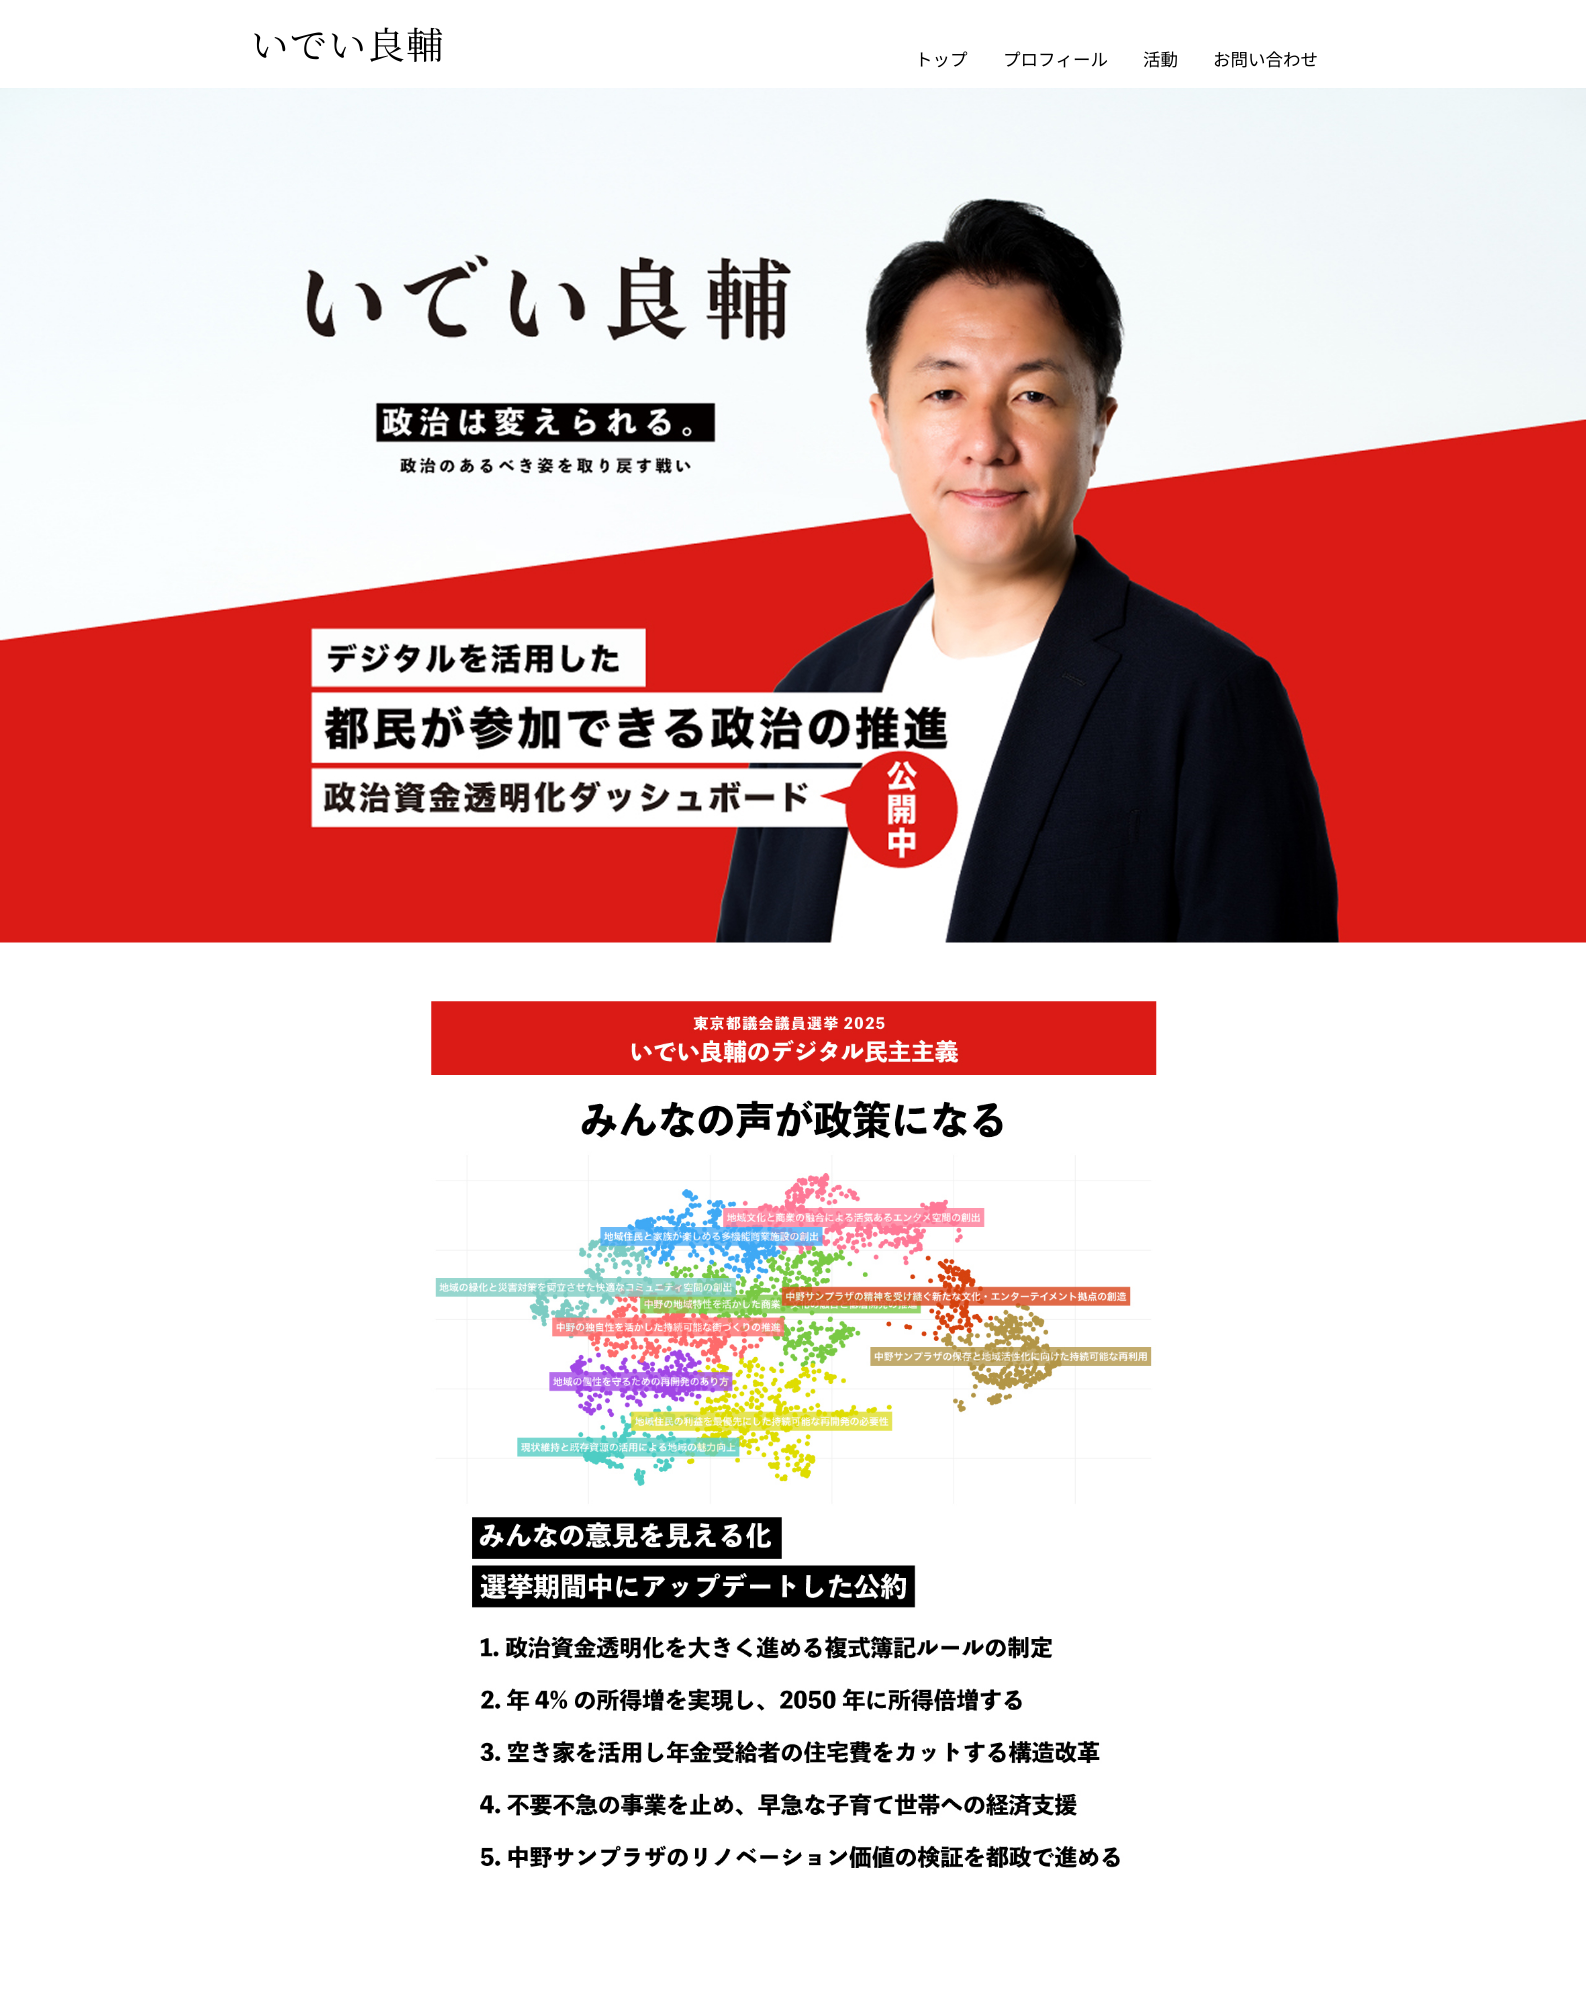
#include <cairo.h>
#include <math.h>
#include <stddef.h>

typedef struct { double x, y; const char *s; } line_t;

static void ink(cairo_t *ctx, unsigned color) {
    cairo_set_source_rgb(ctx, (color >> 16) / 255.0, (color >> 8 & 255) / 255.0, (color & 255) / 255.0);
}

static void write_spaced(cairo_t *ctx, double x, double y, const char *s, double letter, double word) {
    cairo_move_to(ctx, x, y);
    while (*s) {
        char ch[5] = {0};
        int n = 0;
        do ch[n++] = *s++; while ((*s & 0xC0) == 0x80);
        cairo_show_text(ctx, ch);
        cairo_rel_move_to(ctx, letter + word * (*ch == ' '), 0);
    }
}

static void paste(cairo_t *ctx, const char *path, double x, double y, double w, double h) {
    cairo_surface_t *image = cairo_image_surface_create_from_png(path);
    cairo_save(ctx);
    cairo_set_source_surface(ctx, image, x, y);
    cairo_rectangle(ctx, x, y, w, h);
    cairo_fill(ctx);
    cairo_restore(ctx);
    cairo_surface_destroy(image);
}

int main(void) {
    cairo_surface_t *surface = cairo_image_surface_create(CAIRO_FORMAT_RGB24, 1586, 1998);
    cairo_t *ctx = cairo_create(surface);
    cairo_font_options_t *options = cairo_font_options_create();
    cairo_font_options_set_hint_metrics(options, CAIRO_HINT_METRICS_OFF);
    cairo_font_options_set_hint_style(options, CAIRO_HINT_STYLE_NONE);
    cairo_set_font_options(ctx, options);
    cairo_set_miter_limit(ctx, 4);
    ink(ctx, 0xFFFFFF);
    cairo_paint(ctx);
    cairo_select_font_face(ctx, "Noto Serif JP", CAIRO_FONT_SLANT_NORMAL, CAIRO_FONT_WEIGHT_NORMAL);
    cairo_set_font_size(ctx, 37.5);
    ink(ctx, 0x000000);
    write_spaced(ctx, 251, 59, "いでい良輔", 1.25, 0);
    cairo_select_font_face(ctx, "Noto Sans JP", CAIRO_FONT_SLANT_NORMAL, CAIRO_FONT_WEIGHT_NORMAL);
    cairo_set_font_size(ctx, 17.5);
    {
        static const line_t items[] = {
            {915, 66, "トップ"},
            {1003, 66, "プロフィール"},
            {1143, 66, "活動"},
            {1213, 66, "お問い合わせ"},
        };
        for (size_t i = 0; i < sizeof items / sizeof *items; i++) {
            cairo_move_to(ctx, items[i].x, items[i].y);
            cairo_show_text(ctx, items[i].s);
        }
    }
    paste(ctx, "media/1.png", 0, 88, 1586, 855);
    paste(ctx, "media/2.png", 431, 1001, 726, 867);
    cairo_surface_write_to_png(surface, "image.png");
    cairo_font_options_destroy(options);
    cairo_destroy(ctx);
    cairo_surface_destroy(surface);
    return 0;
}
